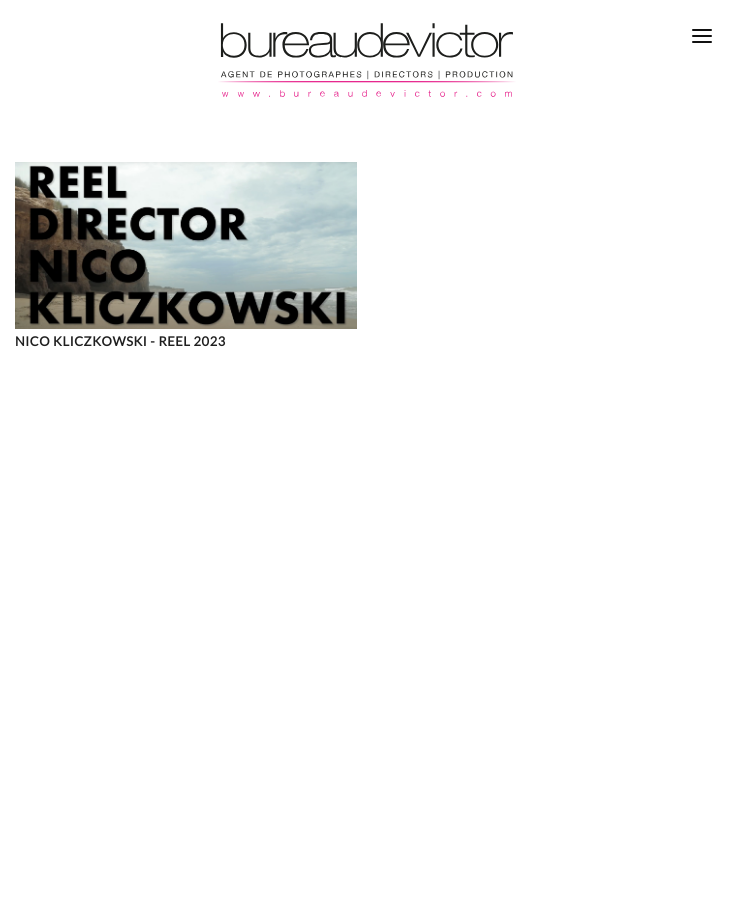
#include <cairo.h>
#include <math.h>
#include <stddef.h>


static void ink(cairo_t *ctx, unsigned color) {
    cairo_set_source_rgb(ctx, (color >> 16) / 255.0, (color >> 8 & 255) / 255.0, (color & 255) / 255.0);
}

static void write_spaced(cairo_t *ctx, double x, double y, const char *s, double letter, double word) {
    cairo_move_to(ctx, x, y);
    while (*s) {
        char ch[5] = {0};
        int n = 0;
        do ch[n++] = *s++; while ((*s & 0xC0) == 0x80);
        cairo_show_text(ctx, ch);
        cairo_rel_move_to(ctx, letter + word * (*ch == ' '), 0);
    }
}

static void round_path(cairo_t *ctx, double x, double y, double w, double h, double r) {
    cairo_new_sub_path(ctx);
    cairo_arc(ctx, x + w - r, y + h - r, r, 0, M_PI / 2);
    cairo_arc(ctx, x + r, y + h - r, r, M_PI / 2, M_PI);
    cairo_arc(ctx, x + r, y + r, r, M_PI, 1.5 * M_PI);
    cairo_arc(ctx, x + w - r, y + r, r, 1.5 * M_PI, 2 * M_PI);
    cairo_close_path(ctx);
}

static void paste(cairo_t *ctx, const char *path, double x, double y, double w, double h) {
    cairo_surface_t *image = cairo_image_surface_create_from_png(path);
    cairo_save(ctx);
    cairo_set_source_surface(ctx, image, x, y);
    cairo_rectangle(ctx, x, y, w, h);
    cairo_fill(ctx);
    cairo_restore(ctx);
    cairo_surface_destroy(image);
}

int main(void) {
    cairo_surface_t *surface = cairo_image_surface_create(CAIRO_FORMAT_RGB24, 733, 906);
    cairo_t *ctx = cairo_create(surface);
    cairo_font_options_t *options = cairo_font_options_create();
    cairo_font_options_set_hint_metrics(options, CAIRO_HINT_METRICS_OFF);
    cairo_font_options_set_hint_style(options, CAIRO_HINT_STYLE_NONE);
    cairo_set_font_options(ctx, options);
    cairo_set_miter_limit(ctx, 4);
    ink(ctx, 0xFFFFFF);
    cairo_paint(ctx);
    paste(ctx, "media/1.png", 218, 23, 298, 74);
    ink(ctx, 0x111111);
    round_path(ctx, 692, 35, 20, 2, 1);
    cairo_fill(ctx);
    round_path(ctx, 692, 29, 20, 2, 1);
    cairo_fill(ctx);
    round_path(ctx, 692, 41, 20, 2, 1);
    cairo_fill(ctx);
    paste(ctx, "media/2.png", 15, 162, 342, 167);
    cairo_select_font_face(ctx, "Lato", CAIRO_FONT_SLANT_NORMAL, CAIRO_FONT_WEIGHT_BOLD);
    cairo_set_font_size(ctx, 13);
    ink(ctx, 0x1F1F1F);
    write_spaced(ctx, 15, 346, "NICO KLICZKOWSKI - REEL 2023", 0.5, 0);
    cairo_surface_write_to_png(surface, "image.png");
    cairo_font_options_destroy(options);
    cairo_destroy(ctx);
    cairo_surface_destroy(surface);
    return 0;
}
